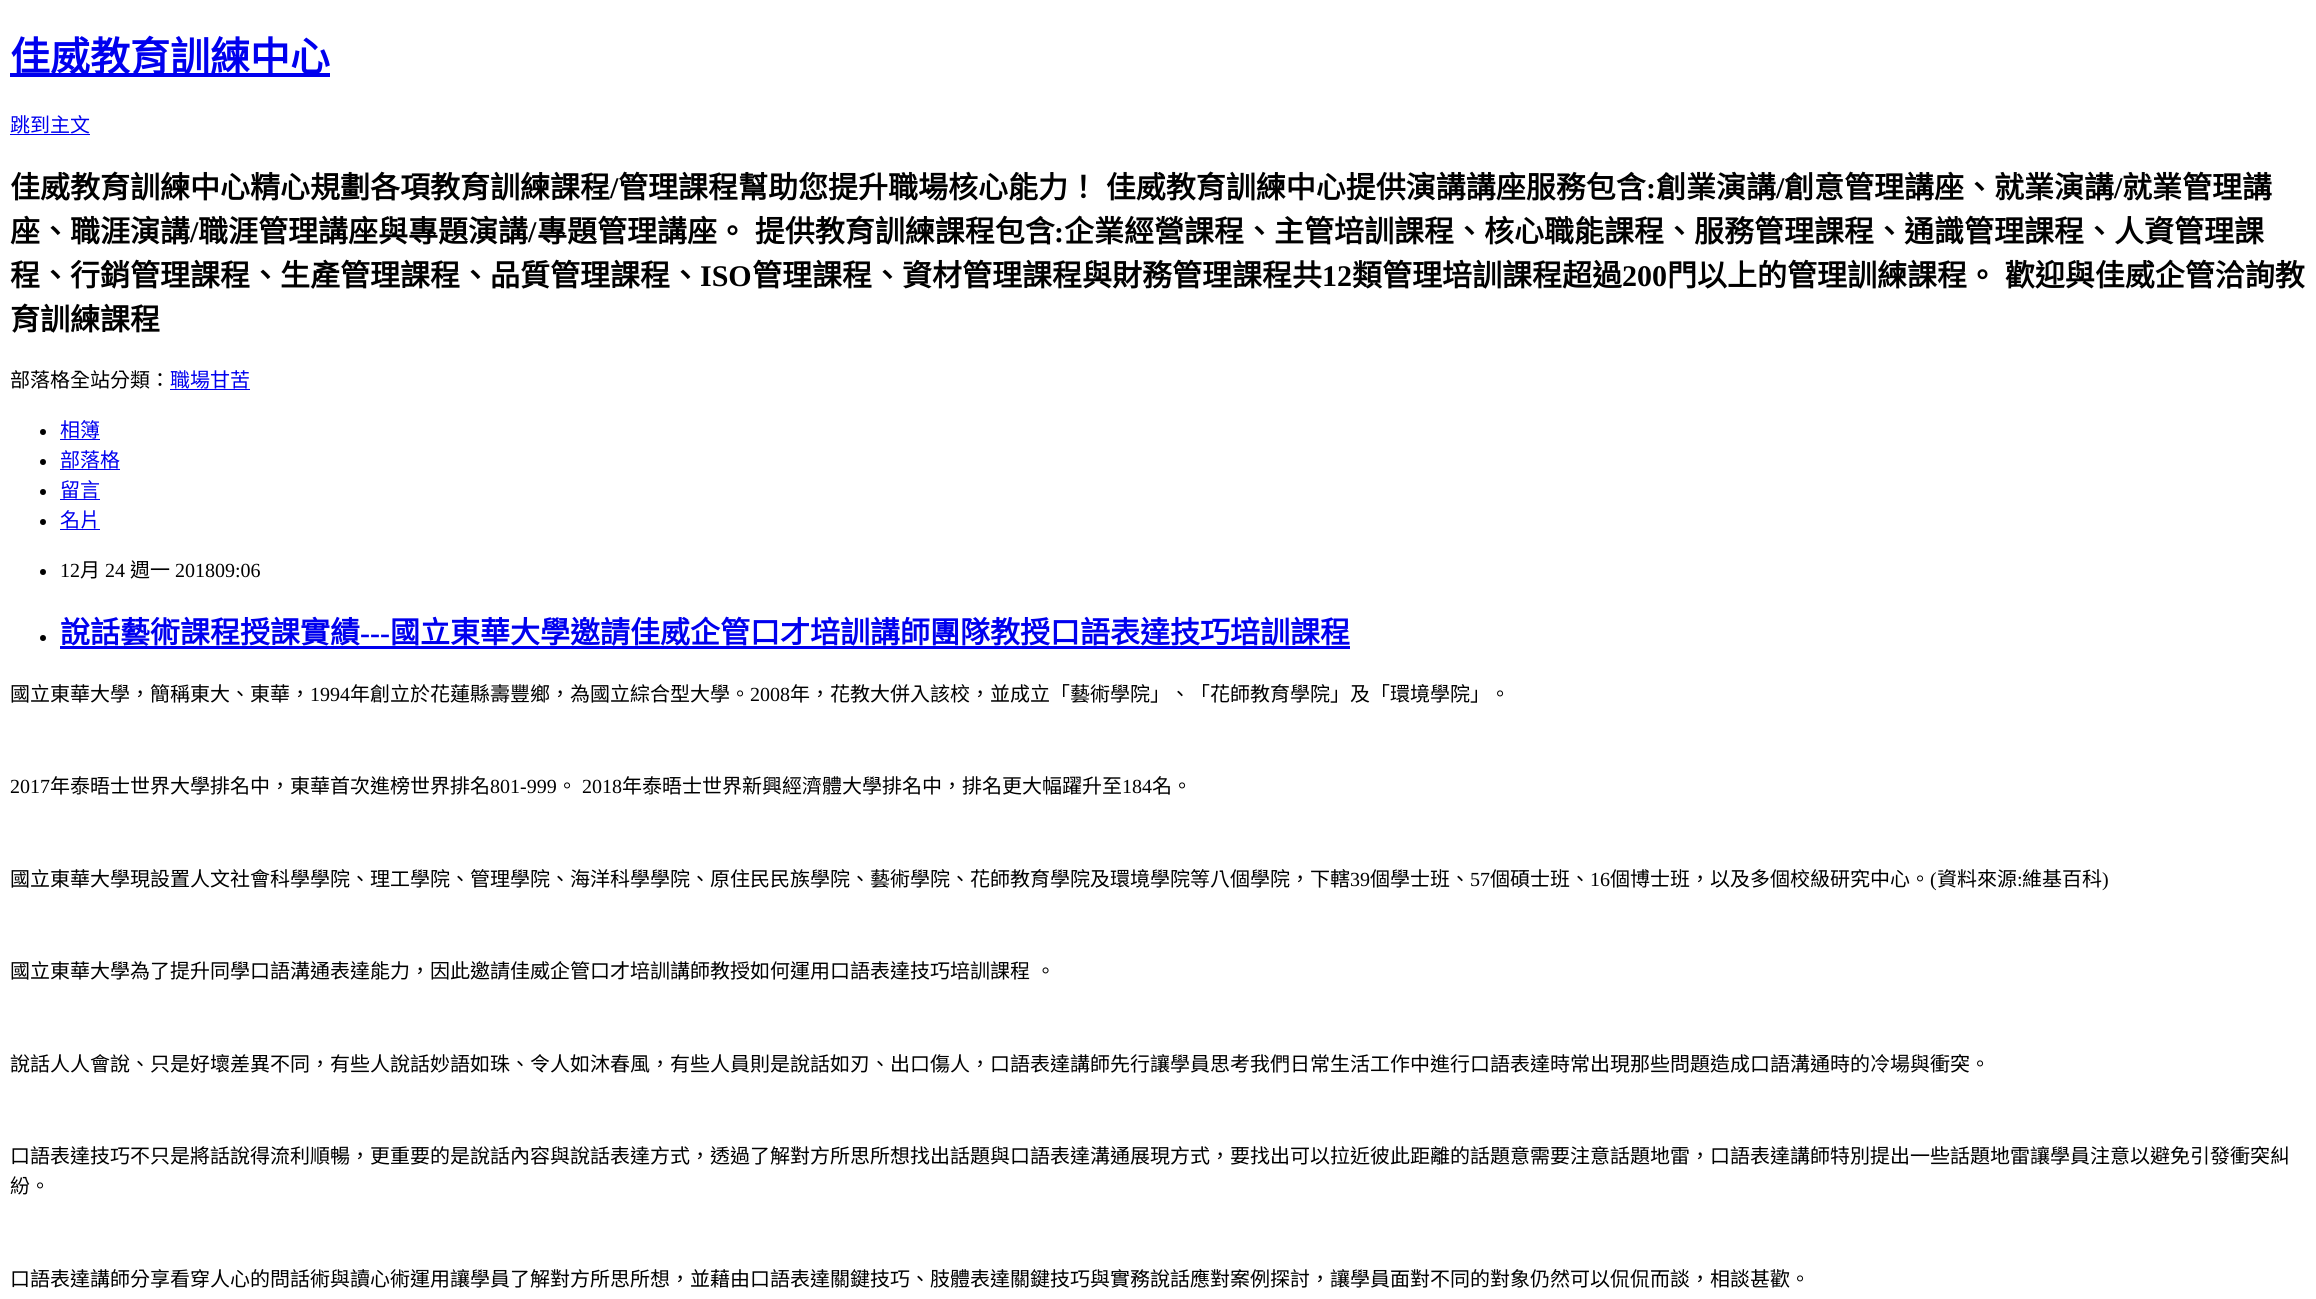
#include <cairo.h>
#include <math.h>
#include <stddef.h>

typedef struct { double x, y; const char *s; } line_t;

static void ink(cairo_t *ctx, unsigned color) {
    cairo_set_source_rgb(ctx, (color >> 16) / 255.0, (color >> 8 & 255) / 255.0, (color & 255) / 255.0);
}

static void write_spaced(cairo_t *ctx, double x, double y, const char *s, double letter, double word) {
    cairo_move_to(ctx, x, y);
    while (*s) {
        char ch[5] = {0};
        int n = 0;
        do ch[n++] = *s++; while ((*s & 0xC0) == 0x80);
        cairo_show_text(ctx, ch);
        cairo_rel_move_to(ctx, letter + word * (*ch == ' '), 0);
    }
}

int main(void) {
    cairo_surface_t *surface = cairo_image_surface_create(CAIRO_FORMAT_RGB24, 2316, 1299);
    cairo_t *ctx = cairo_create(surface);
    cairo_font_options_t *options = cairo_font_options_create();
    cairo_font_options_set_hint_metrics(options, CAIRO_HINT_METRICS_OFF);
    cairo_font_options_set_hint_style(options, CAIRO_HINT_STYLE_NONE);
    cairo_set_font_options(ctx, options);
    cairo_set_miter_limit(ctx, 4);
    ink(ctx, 0xFFFFFF);
    cairo_paint(ctx);
    ink(ctx, 0x0000EE);
    cairo_rectangle(ctx, 10, 73, 320, 4);
    cairo_fill(ctx);
    cairo_select_font_face(ctx, "Noto Sans CJK TC", CAIRO_FONT_SLANT_NORMAL, CAIRO_FONT_WEIGHT_BOLD);
    cairo_set_font_size(ctx, 40);
    cairo_move_to(ctx, 10, 71);
    cairo_show_text(ctx, "佳威教育訓練中心");
    cairo_select_font_face(ctx, "Noto Sans CJK TC", CAIRO_FONT_SLANT_NORMAL, CAIRO_FONT_WEIGHT_NORMAL);
    cairo_set_font_size(ctx, 20);
    cairo_move_to(ctx, 10, 132);
    cairo_show_text(ctx, "跳到主文");
    cairo_rectangle(ctx, 10, 134, 80, 1);
    cairo_fill(ctx);
    cairo_select_font_face(ctx, "Noto Sans CJK TC", CAIRO_FONT_SLANT_NORMAL, CAIRO_FONT_WEIGHT_BOLD);
    cairo_set_font_size(ctx, 30);
    ink(ctx, 0x000000);
    cairo_move_to(ctx, 10, 198);
    cairo_show_text(ctx, "佳威教育訓練中心精心規劃各項教育訓練課程");
    cairo_select_font_face(ctx, "Liberation Serif", CAIRO_FONT_SLANT_NORMAL, CAIRO_FONT_WEIGHT_BOLD);
    cairo_move_to(ctx, 610, 198);
    cairo_show_text(ctx, "/");
    cairo_select_font_face(ctx, "Noto Sans CJK TC", CAIRO_FONT_SLANT_NORMAL, CAIRO_FONT_WEIGHT_BOLD);
    write_spaced(ctx, 618, 198, "管理課程幫助您提升職場核心能力！ 佳威教育訓練中心提供演講講座服務包含", 0, 1);
    cairo_select_font_face(ctx, "Liberation Serif", CAIRO_FONT_SLANT_NORMAL, CAIRO_FONT_WEIGHT_BOLD);
    cairo_move_to(ctx, 1646, 198);
    cairo_show_text(ctx, ":");
    cairo_select_font_face(ctx, "Noto Sans CJK TC", CAIRO_FONT_SLANT_NORMAL, CAIRO_FONT_WEIGHT_BOLD);
    cairo_move_to(ctx, 1656, 198);
    cairo_show_text(ctx, "創業演講");
    cairo_select_font_face(ctx, "Liberation Serif", CAIRO_FONT_SLANT_NORMAL, CAIRO_FONT_WEIGHT_BOLD);
    cairo_move_to(ctx, 1776, 198);
    cairo_show_text(ctx, "/");
    cairo_select_font_face(ctx, "Noto Sans CJK TC", CAIRO_FONT_SLANT_NORMAL, CAIRO_FONT_WEIGHT_BOLD);
    cairo_move_to(ctx, 1784, 198);
    cairo_show_text(ctx, "創意管理講座、就業演講");
    cairo_select_font_face(ctx, "Liberation Serif", CAIRO_FONT_SLANT_NORMAL, CAIRO_FONT_WEIGHT_BOLD);
    cairo_move_to(ctx, 2114, 198);
    cairo_show_text(ctx, "/");
    cairo_select_font_face(ctx, "Noto Sans CJK TC", CAIRO_FONT_SLANT_NORMAL, CAIRO_FONT_WEIGHT_BOLD);
    cairo_move_to(ctx, 2122, 198);
    cairo_show_text(ctx, "就業管理講");
    cairo_move_to(ctx, 10, 242);
    cairo_show_text(ctx, "座、職涯演講");
    cairo_select_font_face(ctx, "Liberation Serif", CAIRO_FONT_SLANT_NORMAL, CAIRO_FONT_WEIGHT_BOLD);
    cairo_move_to(ctx, 190, 242);
    cairo_show_text(ctx, "/");
    cairo_select_font_face(ctx, "Noto Sans CJK TC", CAIRO_FONT_SLANT_NORMAL, CAIRO_FONT_WEIGHT_BOLD);
    cairo_move_to(ctx, 198, 242);
    cairo_show_text(ctx, "職涯管理講座與專題演講");
    cairo_select_font_face(ctx, "Liberation Serif", CAIRO_FONT_SLANT_NORMAL, CAIRO_FONT_WEIGHT_BOLD);
    cairo_move_to(ctx, 528, 242);
    cairo_show_text(ctx, "/");
    cairo_select_font_face(ctx, "Noto Sans CJK TC", CAIRO_FONT_SLANT_NORMAL, CAIRO_FONT_WEIGHT_BOLD);
    write_spaced(ctx, 537, 242, "專題管理講座。 提供教育訓練課程包含", 0, 1);
    cairo_select_font_face(ctx, "Liberation Serif", CAIRO_FONT_SLANT_NORMAL, CAIRO_FONT_WEIGHT_BOLD);
    cairo_move_to(ctx, 1054, 242);
    cairo_show_text(ctx, ":");
    cairo_select_font_face(ctx, "Noto Sans CJK TC", CAIRO_FONT_SLANT_NORMAL, CAIRO_FONT_WEIGHT_BOLD);
    cairo_move_to(ctx, 1064, 242);
    cairo_show_text(ctx, "企業經營課程、主管培訓課程、核心職能課程、服務管理課程、通識管理課程、人資管理課");
    cairo_move_to(ctx, 10, 286);
    cairo_show_text(ctx, "程、行銷管理課程、生產管理課程、品質管理課程、");
    cairo_select_font_face(ctx, "Liberation Serif", CAIRO_FONT_SLANT_NORMAL, CAIRO_FONT_WEIGHT_BOLD);
    cairo_move_to(ctx, 700, 286);
    cairo_show_text(ctx, "ISO");
    cairo_select_font_face(ctx, "Noto Sans CJK TC", CAIRO_FONT_SLANT_NORMAL, CAIRO_FONT_WEIGHT_BOLD);
    cairo_move_to(ctx, 752, 286);
    cairo_show_text(ctx, "管理課程、資材管理課程與財務管理課程共");
    cairo_select_font_face(ctx, "Liberation Serif", CAIRO_FONT_SLANT_NORMAL, CAIRO_FONT_WEIGHT_BOLD);
    cairo_move_to(ctx, 1322, 286);
    cairo_show_text(ctx, "12");
    cairo_select_font_face(ctx, "Noto Sans CJK TC", CAIRO_FONT_SLANT_NORMAL, CAIRO_FONT_WEIGHT_BOLD);
    cairo_move_to(ctx, 1352, 286);
    cairo_show_text(ctx, "類管理培訓課程超過");
    cairo_select_font_face(ctx, "Liberation Serif", CAIRO_FONT_SLANT_NORMAL, CAIRO_FONT_WEIGHT_BOLD);
    cairo_move_to(ctx, 1622, 286);
    cairo_show_text(ctx, "200");
    cairo_select_font_face(ctx, "Noto Sans CJK TC", CAIRO_FONT_SLANT_NORMAL, CAIRO_FONT_WEIGHT_BOLD);
    write_spaced(ctx, 1667, 286, "門以上的管理訓練課程。 歡迎與佳威企管洽詢教", 0, 1);
    cairo_move_to(ctx, 10, 330);
    cairo_show_text(ctx, "育訓練課程");
    cairo_select_font_face(ctx, "Noto Sans CJK TC", CAIRO_FONT_SLANT_NORMAL, CAIRO_FONT_WEIGHT_NORMAL);
    cairo_set_font_size(ctx, 20);
    cairo_move_to(ctx, 10, 387);
    cairo_show_text(ctx, "部落格全站分類：");
    ink(ctx, 0x0000EE);
    cairo_move_to(ctx, 170, 387);
    cairo_show_text(ctx, "職場甘苦");
    cairo_rectangle(ctx, 170, 389, 80, 1);
    cairo_fill(ctx);
    ink(ctx, 0x000000);
    cairo_arc(ctx, 43, 432, 3, 0, 2 * M_PI);
    cairo_fill(ctx);
    ink(ctx, 0x0000EE);
    cairo_move_to(ctx, 60, 437);
    cairo_show_text(ctx, "相簿");
    cairo_rectangle(ctx, 60, 439, 40, 1);
    cairo_fill(ctx);
    ink(ctx, 0x000000);
    cairo_arc(ctx, 43, 462, 3, 0, 2 * M_PI);
    cairo_fill(ctx);
    ink(ctx, 0x0000EE);
    cairo_move_to(ctx, 60, 467);
    cairo_show_text(ctx, "部落格");
    cairo_rectangle(ctx, 60, 469, 60, 1);
    cairo_fill(ctx);
    ink(ctx, 0x000000);
    cairo_arc(ctx, 43, 492, 3, 0, 2 * M_PI);
    cairo_fill(ctx);
    ink(ctx, 0x0000EE);
    cairo_move_to(ctx, 60, 497);
    cairo_show_text(ctx, "留言");
    cairo_rectangle(ctx, 60, 499, 40, 1);
    cairo_fill(ctx);
    ink(ctx, 0x000000);
    cairo_arc(ctx, 43, 522, 3, 0, 2 * M_PI);
    cairo_fill(ctx);
    ink(ctx, 0x0000EE);
    cairo_move_to(ctx, 60, 527);
    cairo_show_text(ctx, "名片");
    cairo_rectangle(ctx, 60, 529, 40, 1);
    cairo_fill(ctx);
    ink(ctx, 0x000000);
    cairo_arc(ctx, 43, 572, 3, 0, 2 * M_PI);
    cairo_fill(ctx);
    cairo_select_font_face(ctx, "Liberation Serif", CAIRO_FONT_SLANT_NORMAL, CAIRO_FONT_WEIGHT_NORMAL);
    cairo_move_to(ctx, 60, 577);
    cairo_show_text(ctx, "12");
    cairo_select_font_face(ctx, "Noto Sans CJK TC", CAIRO_FONT_SLANT_NORMAL, CAIRO_FONT_WEIGHT_NORMAL);
    cairo_move_to(ctx, 80, 577);
    cairo_show_text(ctx, "月");
    cairo_select_font_face(ctx, "Liberation Serif", CAIRO_FONT_SLANT_NORMAL, CAIRO_FONT_WEIGHT_NORMAL);
    cairo_move_to(ctx, 105, 577);
    cairo_show_text(ctx, "24");
    cairo_select_font_face(ctx, "Noto Sans CJK TC", CAIRO_FONT_SLANT_NORMAL, CAIRO_FONT_WEIGHT_NORMAL);
    cairo_move_to(ctx, 130, 577);
    cairo_show_text(ctx, "週一");
    cairo_select_font_face(ctx, "Liberation Serif", CAIRO_FONT_SLANT_NORMAL, CAIRO_FONT_WEIGHT_NORMAL);
    cairo_move_to(ctx, 175, 577);
    cairo_show_text(ctx, "201809:06");
    cairo_new_path(ctx);
    cairo_arc(ctx, 43, 638, 3, 0, 2 * M_PI);
    cairo_fill(ctx);
    cairo_select_font_face(ctx, "Noto Sans CJK TC", CAIRO_FONT_SLANT_NORMAL, CAIRO_FONT_WEIGHT_BOLD);
    cairo_set_font_size(ctx, 30);
    ink(ctx, 0x0000EE);
    cairo_move_to(ctx, 60, 643);
    cairo_show_text(ctx, "說話藝術課程授課實績");
    cairo_select_font_face(ctx, "Liberation Serif", CAIRO_FONT_SLANT_NORMAL, CAIRO_FONT_WEIGHT_BOLD);
    cairo_move_to(ctx, 360, 643);
    cairo_show_text(ctx, "---");
    cairo_rectangle(ctx, 60, 646, 1290, 3);
    cairo_fill(ctx);
    cairo_select_font_face(ctx, "Noto Sans CJK TC", CAIRO_FONT_SLANT_NORMAL, CAIRO_FONT_WEIGHT_BOLD);
    cairo_move_to(ctx, 390, 643);
    cairo_show_text(ctx, "國立東華大學邀請佳威企管口才培訓講師團隊教授口語表達技巧培訓課程");
    cairo_select_font_face(ctx, "Noto Sans CJK TC", CAIRO_FONT_SLANT_NORMAL, CAIRO_FONT_WEIGHT_NORMAL);
    cairo_set_font_size(ctx, 20);
    ink(ctx, 0x000000);
    cairo_move_to(ctx, 10, 701);
    cairo_show_text(ctx, "國立東華大學，簡稱東大、東華，");
    cairo_select_font_face(ctx, "Liberation Serif", CAIRO_FONT_SLANT_NORMAL, CAIRO_FONT_WEIGHT_NORMAL);
    cairo_move_to(ctx, 310, 701);
    cairo_show_text(ctx, "1994");
    cairo_select_font_face(ctx, "Noto Sans CJK TC", CAIRO_FONT_SLANT_NORMAL, CAIRO_FONT_WEIGHT_NORMAL);
    cairo_move_to(ctx, 350, 701);
    cairo_show_text(ctx, "年創立於花蓮縣壽豐鄉，為國立綜合型大學。");
    cairo_select_font_face(ctx, "Liberation Serif", CAIRO_FONT_SLANT_NORMAL, CAIRO_FONT_WEIGHT_NORMAL);
    cairo_move_to(ctx, 750, 701);
    cairo_show_text(ctx, "2008");
    cairo_select_font_face(ctx, "Noto Sans CJK TC", CAIRO_FONT_SLANT_NORMAL, CAIRO_FONT_WEIGHT_NORMAL);
    cairo_move_to(ctx, 790, 701);
    cairo_show_text(ctx, "年，花教大併入該校，並成立「藝術學院」、「花師教育學院」及「環境學院」。");
    cairo_select_font_face(ctx, "Liberation Serif", CAIRO_FONT_SLANT_NORMAL, CAIRO_FONT_WEIGHT_NORMAL);
    cairo_move_to(ctx, 10, 793);
    cairo_show_text(ctx, "2017");
    cairo_select_font_face(ctx, "Noto Sans CJK TC", CAIRO_FONT_SLANT_NORMAL, CAIRO_FONT_WEIGHT_NORMAL);
    cairo_move_to(ctx, 50, 793);
    cairo_show_text(ctx, "年泰晤士世界大學排名中，東華首次進榜世界排名");
    cairo_select_font_face(ctx, "Liberation Serif", CAIRO_FONT_SLANT_NORMAL, CAIRO_FONT_WEIGHT_NORMAL);
    cairo_move_to(ctx, 490, 793);
    cairo_show_text(ctx, "801-999");
    cairo_select_font_face(ctx, "Noto Sans CJK TC", CAIRO_FONT_SLANT_NORMAL, CAIRO_FONT_WEIGHT_NORMAL);
    cairo_move_to(ctx, 557, 793);
    cairo_show_text(ctx, "。");
    cairo_select_font_face(ctx, "Liberation Serif", CAIRO_FONT_SLANT_NORMAL, CAIRO_FONT_WEIGHT_NORMAL);
    cairo_move_to(ctx, 582, 793);
    cairo_show_text(ctx, "2018");
    cairo_select_font_face(ctx, "Noto Sans CJK TC", CAIRO_FONT_SLANT_NORMAL, CAIRO_FONT_WEIGHT_NORMAL);
    cairo_move_to(ctx, 622, 793);
    cairo_show_text(ctx, "年泰晤士世界新興經濟體大學排名中，排名更大幅躍升至");
    cairo_select_font_face(ctx, "Liberation Serif", CAIRO_FONT_SLANT_NORMAL, CAIRO_FONT_WEIGHT_NORMAL);
    cairo_move_to(ctx, 1122, 793);
    cairo_show_text(ctx, "184");
    cairo_select_font_face(ctx, "Noto Sans CJK TC", CAIRO_FONT_SLANT_NORMAL, CAIRO_FONT_WEIGHT_NORMAL);
    cairo_move_to(ctx, 1152, 793);
    cairo_show_text(ctx, "名。");
    cairo_move_to(ctx, 10, 886);
    cairo_show_text(ctx, "國立東華大學現設置人文社會科學學院、理工學院、管理學院、海洋科學學院、原住民民族學院、藝術學院、花師教育學院及環境學院等八個學院，下轄");
    cairo_select_font_face(ctx, "Liberation Serif", CAIRO_FONT_SLANT_NORMAL, CAIRO_FONT_WEIGHT_NORMAL);
    cairo_move_to(ctx, 1350, 886);
    cairo_show_text(ctx, "39");
    cairo_select_font_face(ctx, "Noto Sans CJK TC", CAIRO_FONT_SLANT_NORMAL, CAIRO_FONT_WEIGHT_NORMAL);
    cairo_move_to(ctx, 1370, 886);
    cairo_show_text(ctx, "個學士班、");
    cairo_select_font_face(ctx, "Liberation Serif", CAIRO_FONT_SLANT_NORMAL, CAIRO_FONT_WEIGHT_NORMAL);
    cairo_move_to(ctx, 1470, 886);
    cairo_show_text(ctx, "57");
    cairo_select_font_face(ctx, "Noto Sans CJK TC", CAIRO_FONT_SLANT_NORMAL, CAIRO_FONT_WEIGHT_NORMAL);
    cairo_move_to(ctx, 1490, 886);
    cairo_show_text(ctx, "個碩士班、");
    cairo_select_font_face(ctx, "Liberation Serif", CAIRO_FONT_SLANT_NORMAL, CAIRO_FONT_WEIGHT_NORMAL);
    cairo_move_to(ctx, 1590, 886);
    cairo_show_text(ctx, "16");
    cairo_select_font_face(ctx, "Noto Sans CJK TC", CAIRO_FONT_SLANT_NORMAL, CAIRO_FONT_WEIGHT_NORMAL);
    cairo_move_to(ctx, 1610, 886);
    cairo_show_text(ctx, "個博士班，以及多個校級研究中心。");
    cairo_select_font_face(ctx, "Liberation Serif", CAIRO_FONT_SLANT_NORMAL, CAIRO_FONT_WEIGHT_NORMAL);
    cairo_move_to(ctx, 1930, 886);
    cairo_show_text(ctx, "(");
    cairo_select_font_face(ctx, "Noto Sans CJK TC", CAIRO_FONT_SLANT_NORMAL, CAIRO_FONT_WEIGHT_NORMAL);
    cairo_move_to(ctx, 1937, 886);
    cairo_show_text(ctx, "資料來源");
    cairo_select_font_face(ctx, "Liberation Serif", CAIRO_FONT_SLANT_NORMAL, CAIRO_FONT_WEIGHT_NORMAL);
    cairo_move_to(ctx, 2017, 886);
    cairo_show_text(ctx, ":");
    cairo_select_font_face(ctx, "Noto Sans CJK TC", CAIRO_FONT_SLANT_NORMAL, CAIRO_FONT_WEIGHT_NORMAL);
    cairo_move_to(ctx, 2022, 886);
    cairo_show_text(ctx, "維基百科");
    cairo_select_font_face(ctx, "Liberation Serif", CAIRO_FONT_SLANT_NORMAL, CAIRO_FONT_WEIGHT_NORMAL);
    cairo_move_to(ctx, 2102, 886);
    cairo_show_text(ctx, ")");
    cairo_select_font_face(ctx, "Noto Sans CJK TC", CAIRO_FONT_SLANT_NORMAL, CAIRO_FONT_WEIGHT_NORMAL);
    write_spaced(ctx, 10, 978, "國立東華大學為了提升同學口語溝通表達能力，因此邀請佳威企管口才培訓講師教授如何運用口語表達技巧培訓課程 。", 0, 1);
    {
        static const line_t items[] = {
            {10, 1071, "說話人人會說、只是好壞差異不同，有些人說話妙語如珠、令人如沐春風，有些人員則是說話如刃、出口傷人，口語表達講師先行讓學員思考我們日常生活工作中進行口語表達時常出現那些問題造成口語溝通時的冷場與衝突。"},
            {10, 1163, "口語表達技巧不只是將話說得流利順暢，更重要的是說話內容與說話表達方式，透過了解對方所思所想找出話題與口語表達溝通展現方式，要找出可以拉近彼此距離的話題意需要注意話題地雷，口語表達講師特別提出一些話題地雷讓學員注意以避免引發衝突糾"},
            {10, 1193, "紛。"},
            {10, 1286, "口語表達講師分享看穿人心的問話術與讀心術運用讓學員了解對方所思所想，並藉由口語表達關鍵技巧、肢體表達關鍵技巧與實務說話應對案例探討，讓學員面對不同的對象仍然可以侃侃而談，相談甚歡。"},
        };
        for (size_t i = 0; i < sizeof items / sizeof *items; i++) {
            cairo_move_to(ctx, items[i].x, items[i].y);
            cairo_show_text(ctx, items[i].s);
        }
    }
    cairo_surface_write_to_png(surface, "image.png");
    cairo_font_options_destroy(options);
    cairo_destroy(ctx);
    cairo_surface_destroy(surface);
    return 0;
}
